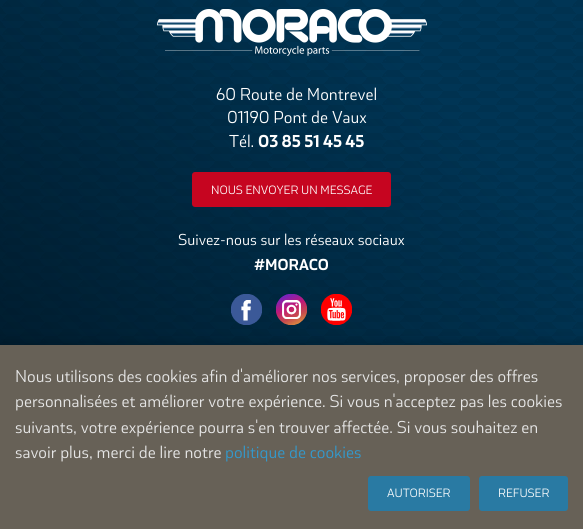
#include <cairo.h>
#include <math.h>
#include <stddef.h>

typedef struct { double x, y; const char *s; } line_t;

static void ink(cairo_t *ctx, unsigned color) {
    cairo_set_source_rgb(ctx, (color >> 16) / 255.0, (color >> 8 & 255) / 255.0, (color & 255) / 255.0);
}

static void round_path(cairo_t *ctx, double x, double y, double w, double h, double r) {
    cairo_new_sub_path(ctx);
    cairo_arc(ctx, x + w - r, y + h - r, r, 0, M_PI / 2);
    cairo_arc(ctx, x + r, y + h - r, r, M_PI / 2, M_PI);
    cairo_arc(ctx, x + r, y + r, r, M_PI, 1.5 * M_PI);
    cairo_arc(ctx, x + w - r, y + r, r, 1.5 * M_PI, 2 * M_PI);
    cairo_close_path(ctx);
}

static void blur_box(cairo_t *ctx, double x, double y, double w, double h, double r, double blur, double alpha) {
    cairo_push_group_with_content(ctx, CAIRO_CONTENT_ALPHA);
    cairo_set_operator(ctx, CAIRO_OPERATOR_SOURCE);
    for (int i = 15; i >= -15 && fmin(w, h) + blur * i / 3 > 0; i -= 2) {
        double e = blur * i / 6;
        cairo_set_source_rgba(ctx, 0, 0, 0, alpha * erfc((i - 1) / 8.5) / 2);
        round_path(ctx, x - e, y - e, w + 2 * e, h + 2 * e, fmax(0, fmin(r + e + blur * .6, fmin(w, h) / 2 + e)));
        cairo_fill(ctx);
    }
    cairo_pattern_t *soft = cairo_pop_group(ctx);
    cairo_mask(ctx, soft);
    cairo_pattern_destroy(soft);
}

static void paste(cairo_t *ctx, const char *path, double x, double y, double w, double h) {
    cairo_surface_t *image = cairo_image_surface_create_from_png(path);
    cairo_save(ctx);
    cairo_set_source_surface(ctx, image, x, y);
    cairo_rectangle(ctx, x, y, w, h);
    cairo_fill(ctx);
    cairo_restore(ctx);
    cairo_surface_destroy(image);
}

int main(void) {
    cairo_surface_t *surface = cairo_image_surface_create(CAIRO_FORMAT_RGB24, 583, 529);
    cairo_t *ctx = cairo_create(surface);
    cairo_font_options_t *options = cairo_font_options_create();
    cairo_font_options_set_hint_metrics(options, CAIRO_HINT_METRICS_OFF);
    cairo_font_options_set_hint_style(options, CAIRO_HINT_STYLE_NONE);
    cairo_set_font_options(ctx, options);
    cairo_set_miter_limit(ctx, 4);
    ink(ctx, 0xFFFFFF);
    cairo_paint(ctx);
    paste(ctx, "media/1.png", 0, 0, 583, 345);
    paste(ctx, "media/2.png", 157, 9, 270, 47);
    cairo_select_font_face(ctx, "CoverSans", CAIRO_FONT_SLANT_NORMAL, CAIRO_FONT_WEIGHT_NORMAL);
    cairo_set_font_size(ctx, 18.2);
    ink(ctx, 0xFFFFFF);
    {
        static const line_t items[] = {
            {216, 100, "60 Route de Montrevel"},
            {227, 123, "01190 Pont de Vaux"},
            {229, 147, "Tél."},
        };
        for (size_t i = 0; i < sizeof items / sizeof *items; i++) {
            cairo_move_to(ctx, items[i].x, items[i].y);
            cairo_show_text(ctx, items[i].s);
        }
    }
    cairo_select_font_face(ctx, "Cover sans", CAIRO_FONT_SLANT_NORMAL, CAIRO_FONT_WEIGHT_BOLD);
    cairo_move_to(ctx, 258, 147);
    cairo_show_text(ctx, "03 85 51 45 45");
    ink(ctx, 0xC60520);
    round_path(ctx, 192, 172, 199, 35, 3);
    cairo_fill(ctx);
    cairo_select_font_face(ctx, "CoverSans", CAIRO_FONT_SLANT_NORMAL, CAIRO_FONT_WEIGHT_NORMAL);
    cairo_set_font_size(ctx, 12.75);
    ink(ctx, 0xFFFFFF);
    cairo_move_to(ctx, 211, 194);
    cairo_show_text(ctx, "NOUS ENVOYER UN MESSAGE");
    cairo_set_font_size(ctx, 16.75);
    cairo_move_to(ctx, 178, 245);
    cairo_show_text(ctx, "Suivez-nous sur les réseaux sociaux");
    cairo_select_font_face(ctx, "Cover sans", CAIRO_FONT_SLANT_NORMAL, CAIRO_FONT_WEIGHT_BOLD);
    cairo_move_to(ctx, 254, 270);
    cairo_show_text(ctx, "#MORACO");
    paste(ctx, "media/3.png", 231, 294, 31, 31);
    paste(ctx, "media/4.png", 276, 294, 31, 31);
    paste(ctx, "media/5.png", 321, 294, 31, 31);
    ink(ctx, 0x000000);
    blur_box(ctx, 0, 345, 583, 184, 0, 7.5, 0.25);
    ink(ctx, 0x676157);
    cairo_rectangle(ctx, 0, 345, 583, 184);
    cairo_fill(ctx);
    cairo_select_font_face(ctx, "CoverSans", CAIRO_FONT_SLANT_NORMAL, CAIRO_FONT_WEIGHT_NORMAL);
    cairo_set_font_size(ctx, 18.2);
    ink(ctx, 0xE6E6E6);
    {
        static const line_t items[] = {
            {15, 382, "Nous utilisons des cookies afin d'améliorer nos services, proposer des offres"},
            {15, 407, "personnalisées et améliorer votre expérience. Si vous n'acceptez pas les cookies"},
            {15, 433, "suivants, votre expérience pourra s'en trouver affectée. Si vous souhaitez en"},
            {15, 458, "savoir plus, merci de lire notre"},
        };
        for (size_t i = 0; i < sizeof items / sizeof *items; i++) {
            cairo_move_to(ctx, items[i].x, items[i].y);
            cairo_show_text(ctx, items[i].s);
        }
    }
    ink(ctx, 0x3399CC);
    cairo_move_to(ctx, 225, 458);
    cairo_show_text(ctx, "politique de cookies");
    ink(ctx, 0x297AA3);
    round_path(ctx, 368, 476, 102, 35, 3);
    cairo_fill(ctx);
    cairo_set_font_size(ctx, 12.75);
    ink(ctx, 0xFFFFFF);
    cairo_move_to(ctx, 387, 497);
    cairo_show_text(ctx, "AUTORISER");
    ink(ctx, 0x297AA3);
    round_path(ctx, 479, 476, 89, 35, 3);
    cairo_fill(ctx);
    ink(ctx, 0xFFFFFF);
    cairo_move_to(ctx, 498, 497);
    cairo_show_text(ctx, "REFUSER");
    cairo_surface_write_to_png(surface, "image.png");
    cairo_font_options_destroy(options);
    cairo_destroy(ctx);
    cairo_surface_destroy(surface);
    return 0;
}
